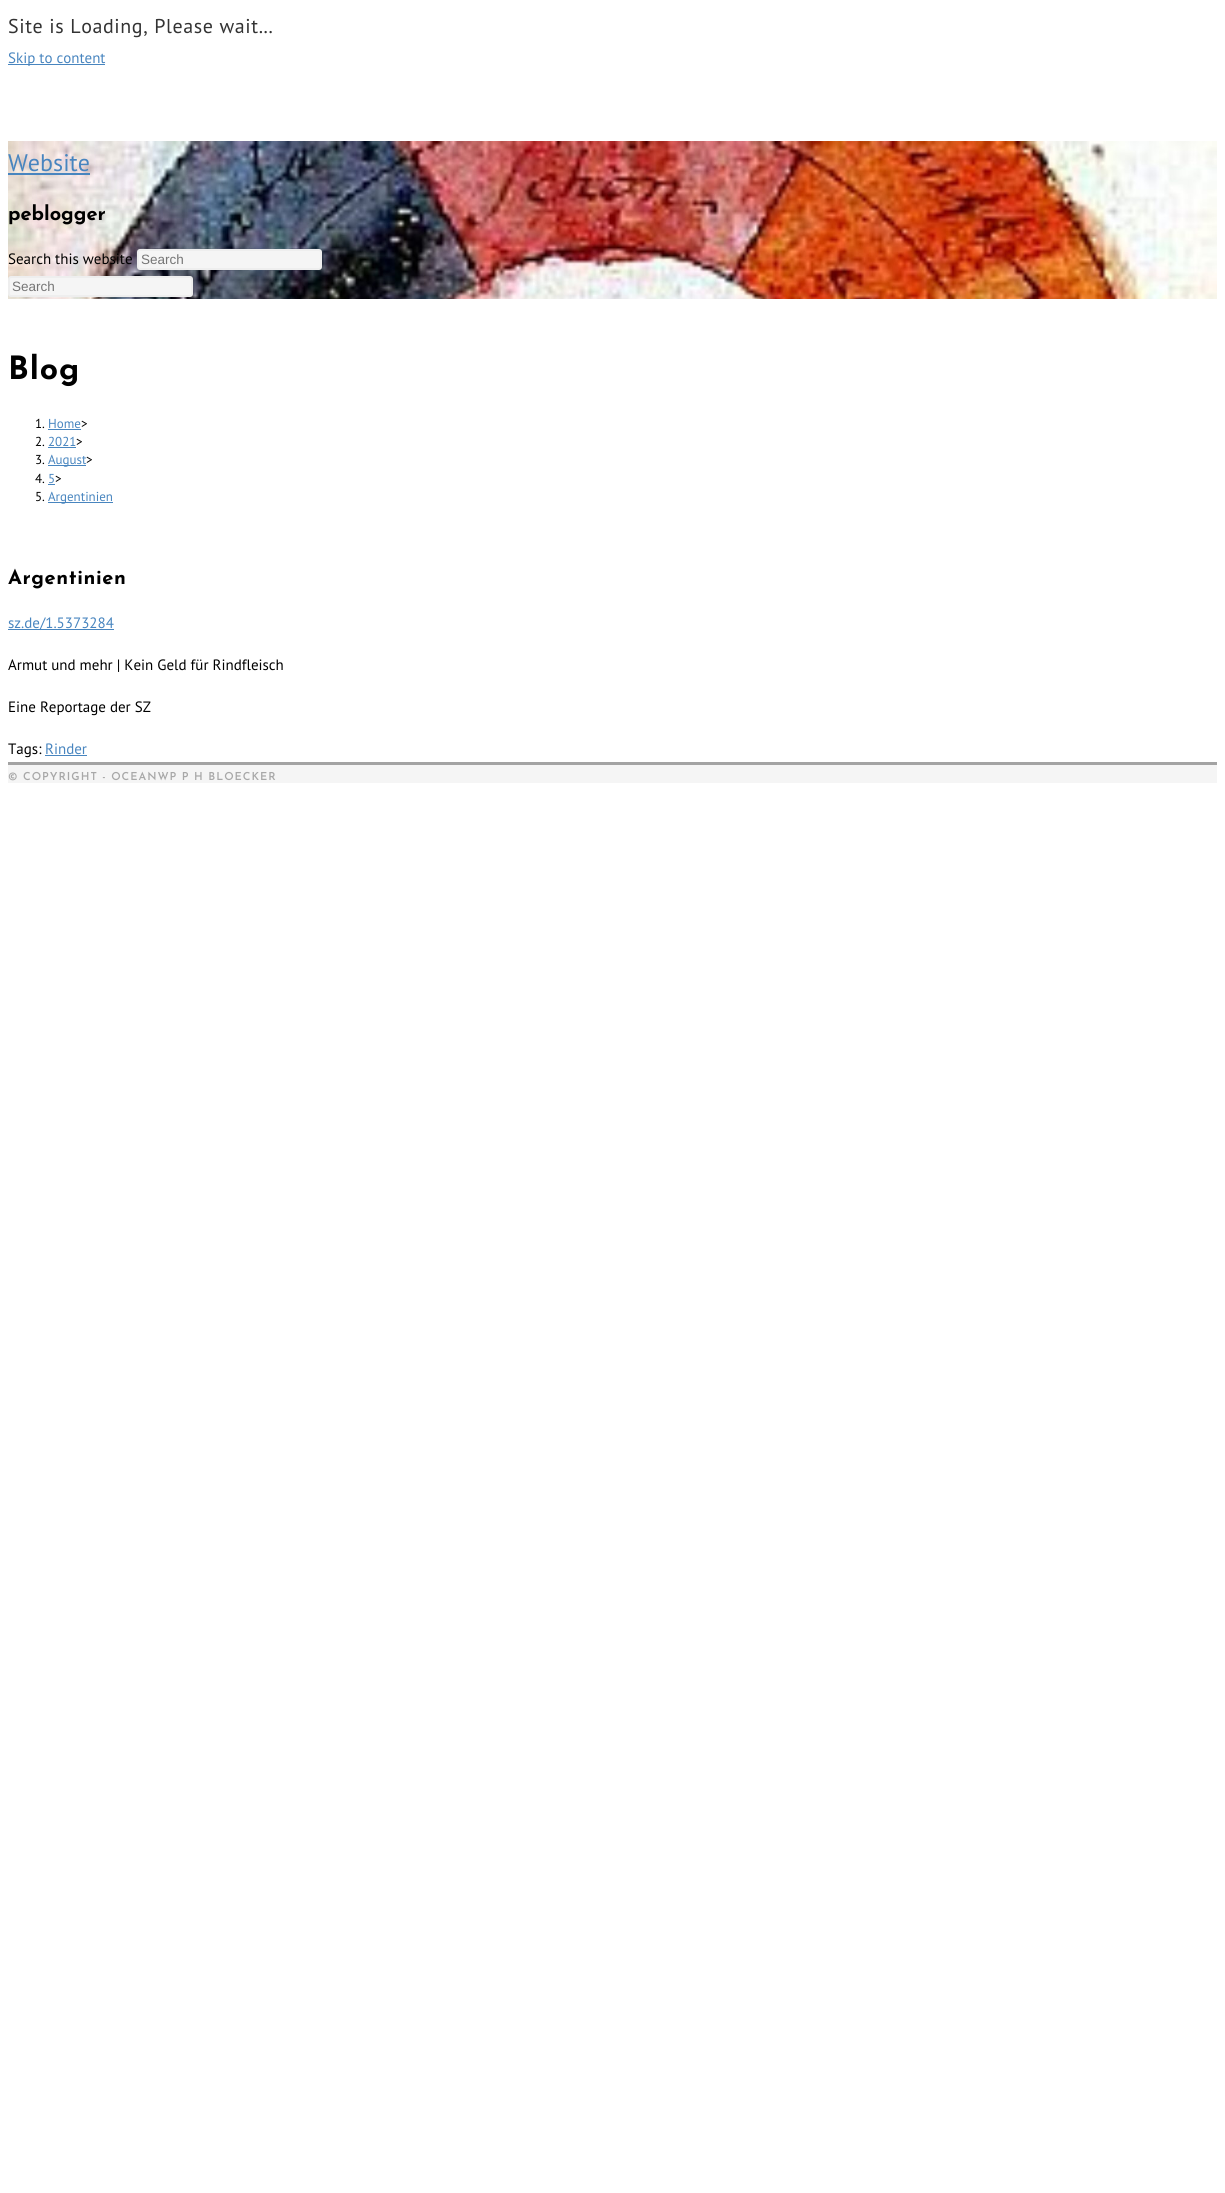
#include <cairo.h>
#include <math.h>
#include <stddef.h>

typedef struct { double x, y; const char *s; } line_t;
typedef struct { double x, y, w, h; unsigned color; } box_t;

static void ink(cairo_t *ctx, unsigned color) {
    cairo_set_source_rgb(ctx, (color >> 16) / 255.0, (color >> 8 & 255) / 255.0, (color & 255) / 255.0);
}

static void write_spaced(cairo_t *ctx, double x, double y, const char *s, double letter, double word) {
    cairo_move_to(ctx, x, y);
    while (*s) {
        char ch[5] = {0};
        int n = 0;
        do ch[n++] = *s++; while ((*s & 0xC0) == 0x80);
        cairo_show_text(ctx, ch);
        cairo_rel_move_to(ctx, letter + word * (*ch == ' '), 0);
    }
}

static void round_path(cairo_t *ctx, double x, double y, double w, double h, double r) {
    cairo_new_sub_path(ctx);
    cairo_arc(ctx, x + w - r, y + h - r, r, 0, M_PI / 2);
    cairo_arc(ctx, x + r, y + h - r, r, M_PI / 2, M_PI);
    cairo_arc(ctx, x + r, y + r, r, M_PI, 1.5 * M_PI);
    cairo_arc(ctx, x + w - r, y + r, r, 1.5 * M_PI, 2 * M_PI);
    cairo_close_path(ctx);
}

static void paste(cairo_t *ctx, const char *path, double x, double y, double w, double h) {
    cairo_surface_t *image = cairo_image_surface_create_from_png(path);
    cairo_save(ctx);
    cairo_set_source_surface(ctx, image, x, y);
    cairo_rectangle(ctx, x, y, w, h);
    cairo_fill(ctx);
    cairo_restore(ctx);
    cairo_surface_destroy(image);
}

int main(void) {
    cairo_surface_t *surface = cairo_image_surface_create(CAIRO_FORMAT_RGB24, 1225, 2193);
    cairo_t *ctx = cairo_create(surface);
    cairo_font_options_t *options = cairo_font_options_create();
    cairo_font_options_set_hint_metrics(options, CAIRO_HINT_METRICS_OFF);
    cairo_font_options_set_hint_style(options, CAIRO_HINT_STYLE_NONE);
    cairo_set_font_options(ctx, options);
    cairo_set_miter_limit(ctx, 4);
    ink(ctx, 0xFFFFFF);
    cairo_paint(ctx);
    cairo_select_font_face(ctx, "PT Sans", CAIRO_FONT_SLANT_NORMAL, CAIRO_FONT_WEIGHT_NORMAL);
    cairo_set_font_size(ctx, 20);
    ink(ctx, 0x333333);
    write_spaced(ctx, 8, 33, "Site is Loading, Please wait...", 0.6, 0);
    ink(ctx, 0x4885BF);
    cairo_rectangle(ctx, 8, 64, 97, 1);
    cairo_fill(ctx);
    cairo_set_font_size(ctx, 15);
    cairo_move_to(ctx, 8, 63);
    cairo_show_text(ctx, "Skip to content");
    paste(ctx, "media/1.png", 8, 141, 1209, 158);
    cairo_set_font_size(ctx, 24);
    cairo_move_to(ctx, 8, 171);
    cairo_show_text(ctx, "Website");
    cairo_rectangle(ctx, 8, 173, 82, 2);
    cairo_fill(ctx);
    cairo_select_font_face(ctx, "Josefin Sans", CAIRO_FONT_SLANT_NORMAL, CAIRO_FONT_WEIGHT_BOLD);
    cairo_set_font_size(ctx, 20);
    ink(ctx, 0x000000);
    cairo_move_to(ctx, 8, 220);
    cairo_show_text(ctx, "peblogger");
    cairo_select_font_face(ctx, "PT Sans", CAIRO_FONT_SLANT_NORMAL, CAIRO_FONT_WEIGHT_NORMAL);
    cairo_set_font_size(ctx, 15);
    cairo_move_to(ctx, 8, 264);
    cairo_show_text(ctx, "Search this website");
    ink(ctx, 0xF5F5F5);
    round_path(ctx, 138, 250, 183, 19, 2);
    cairo_fill_preserve(ctx);
    ink(ctx, 0xEEEEEE);
    cairo_stroke(ctx);
    cairo_select_font_face(ctx, "Liberation Sans", CAIRO_FONT_SLANT_NORMAL, CAIRO_FONT_WEIGHT_NORMAL);
    cairo_set_font_size(ctx, 13.5);
    ink(ctx, 0x757575);
    cairo_move_to(ctx, 141, 264);
    cairo_show_text(ctx, "Search");
    ink(ctx, 0xF5F5F5);
    round_path(ctx, 9, 277, 183, 19, 2);
    cairo_fill_preserve(ctx);
    ink(ctx, 0xEEEEEE);
    cairo_stroke(ctx);
    ink(ctx, 0x757575);
    cairo_move_to(ctx, 12, 291);
    cairo_show_text(ctx, "Search");
    cairo_select_font_face(ctx, "Josefin Sans", CAIRO_FONT_SLANT_NORMAL, CAIRO_FONT_WEIGHT_BOLD);
    cairo_set_font_size(ctx, 32);
    ink(ctx, 0x000000);
    write_spaced(ctx, 8, 379, "Blog", 1, 0);
    cairo_select_font_face(ctx, "PT Sans", CAIRO_FONT_SLANT_NORMAL, CAIRO_FONT_WEIGHT_NORMAL);
    cairo_set_font_size(ctx, 13);
    cairo_move_to(ctx, 35, 428);
    cairo_show_text(ctx, "1.");
    ink(ctx, 0x4885BF);
    cairo_move_to(ctx, 48, 428);
    cairo_show_text(ctx, "Home");
    cairo_rectangle(ctx, 48, 429, 33, 1);
    cairo_fill(ctx);
    ink(ctx, 0x000000);
    cairo_move_to(ctx, 81, 428);
    cairo_show_text(ctx, ">");
    cairo_move_to(ctx, 35, 446);
    cairo_show_text(ctx, "2.");
    ink(ctx, 0x4885BF);
    cairo_move_to(ctx, 48, 446);
    cairo_show_text(ctx, "2021");
    cairo_rectangle(ctx, 48, 447, 28, 1);
    cairo_fill(ctx);
    ink(ctx, 0x000000);
    cairo_move_to(ctx, 76, 446);
    cairo_show_text(ctx, ">");
    cairo_move_to(ctx, 35, 464);
    cairo_show_text(ctx, "3.");
    ink(ctx, 0x4885BF);
    cairo_rectangle(ctx, 48, 465, 38, 1);
    cairo_fill(ctx);
    cairo_move_to(ctx, 48, 464);
    cairo_show_text(ctx, "August");
    ink(ctx, 0x000000);
    cairo_move_to(ctx, 86, 464);
    cairo_show_text(ctx, ">");
    cairo_move_to(ctx, 35, 483);
    cairo_show_text(ctx, "4.");
    ink(ctx, 0x4885BF);
    cairo_move_to(ctx, 48, 483);
    cairo_show_text(ctx, "5");
    cairo_rectangle(ctx, 48, 484, 7, 1);
    cairo_fill(ctx);
    ink(ctx, 0x000000);
    cairo_move_to(ctx, 55, 483);
    cairo_show_text(ctx, ">");
    cairo_move_to(ctx, 35, 501);
    cairo_show_text(ctx, "5.");
    ink(ctx, 0x4885BF);
    cairo_rectangle(ctx, 48, 502, 65, 1);
    cairo_fill(ctx);
    cairo_move_to(ctx, 48, 501);
    cairo_show_text(ctx, "Argentinien");
    cairo_select_font_face(ctx, "Josefin Sans", CAIRO_FONT_SLANT_NORMAL, CAIRO_FONT_WEIGHT_BOLD);
    cairo_set_font_size(ctx, 20);
    ink(ctx, 0x000000);
    write_spaced(ctx, 8, 584, "Argentinien", 0.6, 0);
    ink(ctx, 0x4885BF);
    cairo_rectangle(ctx, 8, 629, 106, 1);
    cairo_fill(ctx);
    cairo_select_font_face(ctx, "PT Sans", CAIRO_FONT_SLANT_NORMAL, CAIRO_FONT_WEIGHT_NORMAL);
    cairo_set_font_size(ctx, 15);
    cairo_move_to(ctx, 8, 628);
    cairo_show_text(ctx, "sz.de/1.5373284");
    ink(ctx, 0x000000);
    {
        static const line_t items[] = {
            {8, 670, "Armut und mehr | Kein Geld für Rindfleisch"},
            {8, 712, "Eine Reportage der SZ"},
            {8, 754, "Tags:"},
        };
        for (size_t i = 0; i < sizeof items / sizeof *items; i++) {
            cairo_move_to(ctx, items[i].x, items[i].y);
            cairo_show_text(ctx, items[i].s);
        }
    }
    ink(ctx, 0x4885BF);
    cairo_move_to(ctx, 45, 754);
    cairo_show_text(ctx, "Rinder");
    {
        static const box_t items[] = {
            {45, 755, 42, 1, 0x4885BF},
            {8, 762, 1209, 3, 0xA3A3A3},
            {8, 765, 1209, 18, 0xF5F5F5},
        };
        for (size_t i = 0; i < sizeof items / sizeof *items; i++) {
            ink(ctx, items[i].color);
            cairo_rectangle(ctx, items[i].x, items[i].y, items[i].w, items[i].h);
            cairo_fill(ctx);
        }
    }
    cairo_select_font_face(ctx, "Josefin Sans SemiBold", CAIRO_FONT_SLANT_NORMAL, CAIRO_FONT_WEIGHT_NORMAL);
    cairo_set_font_size(ctx, 11);
    ink(ctx, 0xA8A8A8);
    write_spaced(ctx, 8, 780, "© COPYRIGHT - OCEANWP P H BLOECKER", 1, 0);
    cairo_surface_write_to_png(surface, "image.png");
    cairo_font_options_destroy(options);
    cairo_destroy(ctx);
    cairo_surface_destroy(surface);
    return 0;
}
